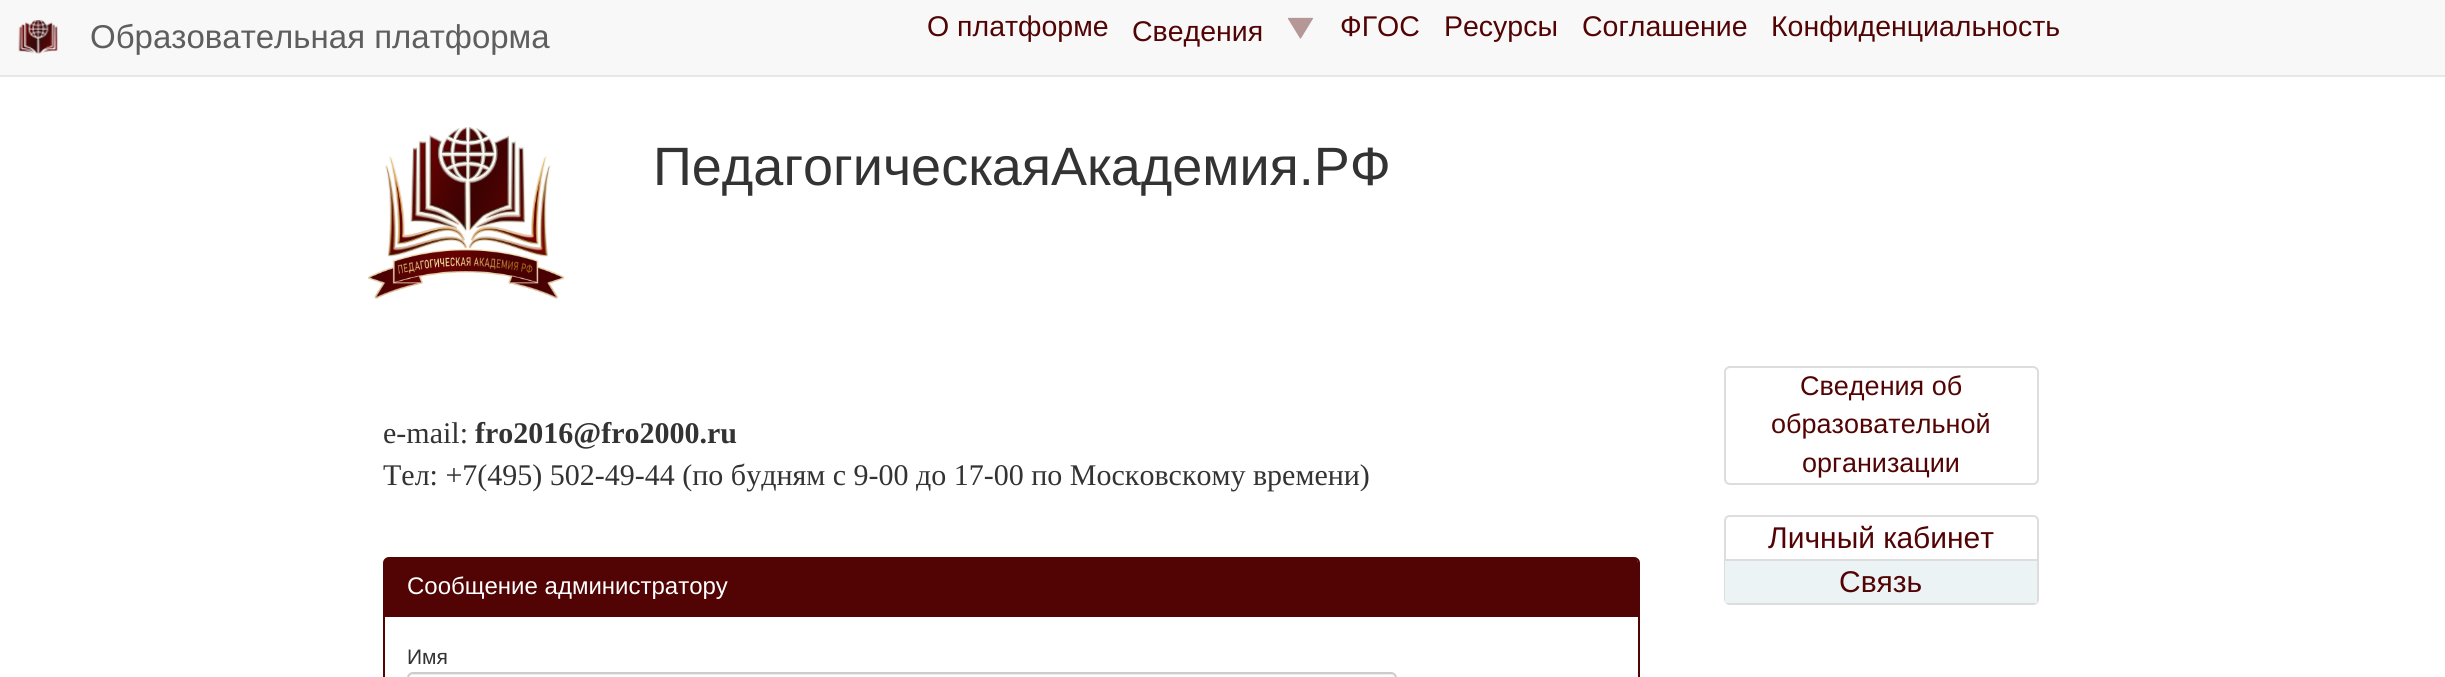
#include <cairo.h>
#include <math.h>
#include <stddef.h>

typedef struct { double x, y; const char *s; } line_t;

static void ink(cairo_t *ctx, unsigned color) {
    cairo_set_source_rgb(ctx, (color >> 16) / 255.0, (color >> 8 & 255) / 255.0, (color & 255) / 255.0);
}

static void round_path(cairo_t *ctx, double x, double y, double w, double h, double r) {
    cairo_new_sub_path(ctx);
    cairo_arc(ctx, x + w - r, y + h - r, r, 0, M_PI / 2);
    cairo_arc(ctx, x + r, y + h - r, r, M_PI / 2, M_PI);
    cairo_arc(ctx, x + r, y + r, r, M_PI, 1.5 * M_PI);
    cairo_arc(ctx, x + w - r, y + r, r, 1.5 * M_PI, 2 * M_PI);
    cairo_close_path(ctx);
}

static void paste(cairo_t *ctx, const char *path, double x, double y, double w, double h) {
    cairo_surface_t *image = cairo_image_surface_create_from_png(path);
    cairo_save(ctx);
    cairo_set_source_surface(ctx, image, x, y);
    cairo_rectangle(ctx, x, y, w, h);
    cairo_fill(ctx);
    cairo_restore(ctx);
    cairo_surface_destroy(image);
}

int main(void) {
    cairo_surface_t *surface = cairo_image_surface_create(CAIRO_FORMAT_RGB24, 2445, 677);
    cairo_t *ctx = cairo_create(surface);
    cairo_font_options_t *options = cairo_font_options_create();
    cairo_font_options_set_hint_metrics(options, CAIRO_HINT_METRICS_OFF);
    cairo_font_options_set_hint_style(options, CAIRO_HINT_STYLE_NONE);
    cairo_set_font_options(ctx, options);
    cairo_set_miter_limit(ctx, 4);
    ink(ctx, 0xFFFFFF);
    cairo_paint(ctx);
    ink(ctx, 0xF8F8F8);
    cairo_rectangle(ctx, 0, 0, 2445, 75);
    cairo_fill(ctx);
    ink(ctx, 0xE7E7E7);
    cairo_rectangle(ctx, 0, 75, 2445, 2);
    cairo_fill(ctx);
    paste(ctx, "media/1.png", 18, 20, 40, 34);
    cairo_select_font_face(ctx, "Liberation Sans", CAIRO_FONT_SLANT_NORMAL, CAIRO_FONT_WEIGHT_NORMAL);
    cairo_set_font_size(ctx, 33);
    ink(ctx, 0x5E5E5E);
    cairo_move_to(ctx, 90, 48);
    cairo_show_text(ctx, "Образовательная платформа");
    cairo_set_font_size(ctx, 28.5);
    ink(ctx, 0x520404);
    cairo_move_to(ctx, 927, 36);
    cairo_show_text(ctx, "О платформе");
    cairo_move_to(ctx, 1132, 41);
    cairo_show_text(ctx, "Сведения");
    paste(ctx, "media/2.png", 1287, 17, 26, 22);
    {
        static const line_t items[] = {
            {1340, 36, "ФГОС"},
            {1444, 36, "Ресурсы"},
            {1582, 36, "Соглашение"},
            {1771, 36, "Конфиденциальность"},
        };
        for (size_t i = 0; i < sizeof items / sizeof *items; i++) {
            cairo_move_to(ctx, items[i].x, items[i].y);
            cairo_show_text(ctx, items[i].s);
        }
    }
    paste(ctx, "media/3.png", 368, 126, 197, 173);
    cairo_set_font_size(ctx, 54);
    ink(ctx, 0x333333);
    cairo_move_to(ctx, 653, 185);
    cairo_show_text(ctx, "ПедагогическаяАкадемия.РФ");
    cairo_select_font_face(ctx, "Liberation Serif", CAIRO_FONT_SLANT_NORMAL, CAIRO_FONT_WEIGHT_NORMAL);
    cairo_set_font_size(ctx, 30);
    cairo_move_to(ctx, 383, 443);
    cairo_show_text(ctx, "e-mail:");
    cairo_select_font_face(ctx, "Liberation Serif", CAIRO_FONT_SLANT_NORMAL, CAIRO_FONT_WEIGHT_BOLD);
    cairo_move_to(ctx, 475, 443);
    cairo_show_text(ctx, "fro2016@fro2000.ru");
    cairo_select_font_face(ctx, "Liberation Serif", CAIRO_FONT_SLANT_NORMAL, CAIRO_FONT_WEIGHT_NORMAL);
    cairo_move_to(ctx, 383, 485);
    cairo_show_text(ctx, "Тел: +7(495) 502-49-44 (по будням с 9-00 до 17-00 по Московскому времени)");
    round_path(ctx, 384, 558, 1255, 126, 5);
    ink(ctx, 0x520404);
    cairo_stroke(ctx);
    cairo_new_path(ctx);
    cairo_move_to(ctx, 389, 558);
    cairo_line_to(ctx, 1633, 558);
    cairo_curve_to(ctx, 1636, 558, 1638, 560, 1638, 563);
    cairo_line_to(ctx, 1638, 617);
    cairo_line_to(ctx, 384, 617);
    cairo_line_to(ctx, 384, 563);
    cairo_curve_to(ctx, 384, 560, 386, 558, 389, 558);
    cairo_close_path(ctx);
    cairo_fill(ctx);
    cairo_select_font_face(ctx, "Liberation Sans", CAIRO_FONT_SLANT_NORMAL, CAIRO_FONT_WEIGHT_NORMAL);
    cairo_set_font_size(ctx, 24);
    ink(ctx, 0xFFFFFF);
    cairo_move_to(ctx, 407, 594);
    cairo_show_text(ctx, "Сообщение администратору");
    cairo_set_font_size(ctx, 21);
    ink(ctx, 0x333333);
    cairo_move_to(ctx, 407, 664);
    cairo_show_text(ctx, "Имя");
    ink(ctx, 0xECECEC);
    cairo_new_path(ctx);
    cairo_move_to(ctx, 412, 675);
    cairo_line_to(ctx, 1390, 675);
    cairo_curve_to(ctx, 1393, 675, 1395, 677, 1395, 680);
    cairo_curve_to(ctx, 1395, 677, 1393, 674, 1390, 674);
    cairo_line_to(ctx, 413, 674);
    cairo_curve_to(ctx, 410, 674, 408, 677, 408, 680);
    cairo_curve_to(ctx, 408, 677, 410, 675, 412, 675);
    cairo_close_path(ctx);
    cairo_fill(ctx);
    round_path(ctx, 408, 673, 988, 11, 5);
    ink(ctx, 0xCCCCCC);
    cairo_stroke(ctx);
    round_path(ctx, 1725, 367, 313, 117, 5);
    ink(ctx, 0xDDDDDD);
    cairo_stroke(ctx);
    cairo_set_font_size(ctx, 27);
    ink(ctx, 0x520404);
    {
        static const line_t items[] = {
            {1800, 395, "Сведения об"},
            {1771, 433, "образовательной"},
            {1802, 472, "организации"},
        };
        for (size_t i = 0; i < sizeof items / sizeof *items; i++) {
            cairo_move_to(ctx, items[i].x, items[i].y);
            cairo_show_text(ctx, items[i].s);
        }
    }
    cairo_new_path(ctx);
    cairo_move_to(ctx, 1730, 516);
    cairo_line_to(ctx, 2033, 516);
    cairo_curve_to(ctx, 2036, 516, 2038, 518, 2038, 521);
    cairo_line_to(ctx, 2038, 560);
    cairo_line_to(ctx, 1725, 560);
    cairo_line_to(ctx, 1725, 521);
    cairo_curve_to(ctx, 1725, 518, 1727, 516, 1730, 516);
    cairo_close_path(ctx);
    ink(ctx, 0xDDDDDD);
    cairo_stroke(ctx);
    cairo_set_font_size(ctx, 30);
    ink(ctx, 0x520404);
    cairo_move_to(ctx, 1768, 548);
    cairo_show_text(ctx, "Личный кабинет");
    cairo_new_path(ctx);
    cairo_move_to(ctx, 1725, 561);
    cairo_line_to(ctx, 2038, 561);
    cairo_line_to(ctx, 2038, 599);
    cairo_curve_to(ctx, 2038, 602, 2036, 604, 2033, 604);
    cairo_line_to(ctx, 1730, 604);
    cairo_curve_to(ctx, 1727, 604, 1725, 602, 1725, 599);
    cairo_close_path(ctx);
    ink(ctx, 0xDDDDDD);
    cairo_stroke(ctx);
    ink(ctx, 0xEBF3F5);
    cairo_rectangle(ctx, 1725, 561, 312, 42);
    cairo_fill(ctx);
    ink(ctx, 0x520404);
    cairo_move_to(ctx, 1839, 592);
    cairo_show_text(ctx, "Связь");
    cairo_surface_write_to_png(surface, "image.png");
    cairo_font_options_destroy(options);
    cairo_destroy(ctx);
    cairo_surface_destroy(surface);
    return 0;
}
